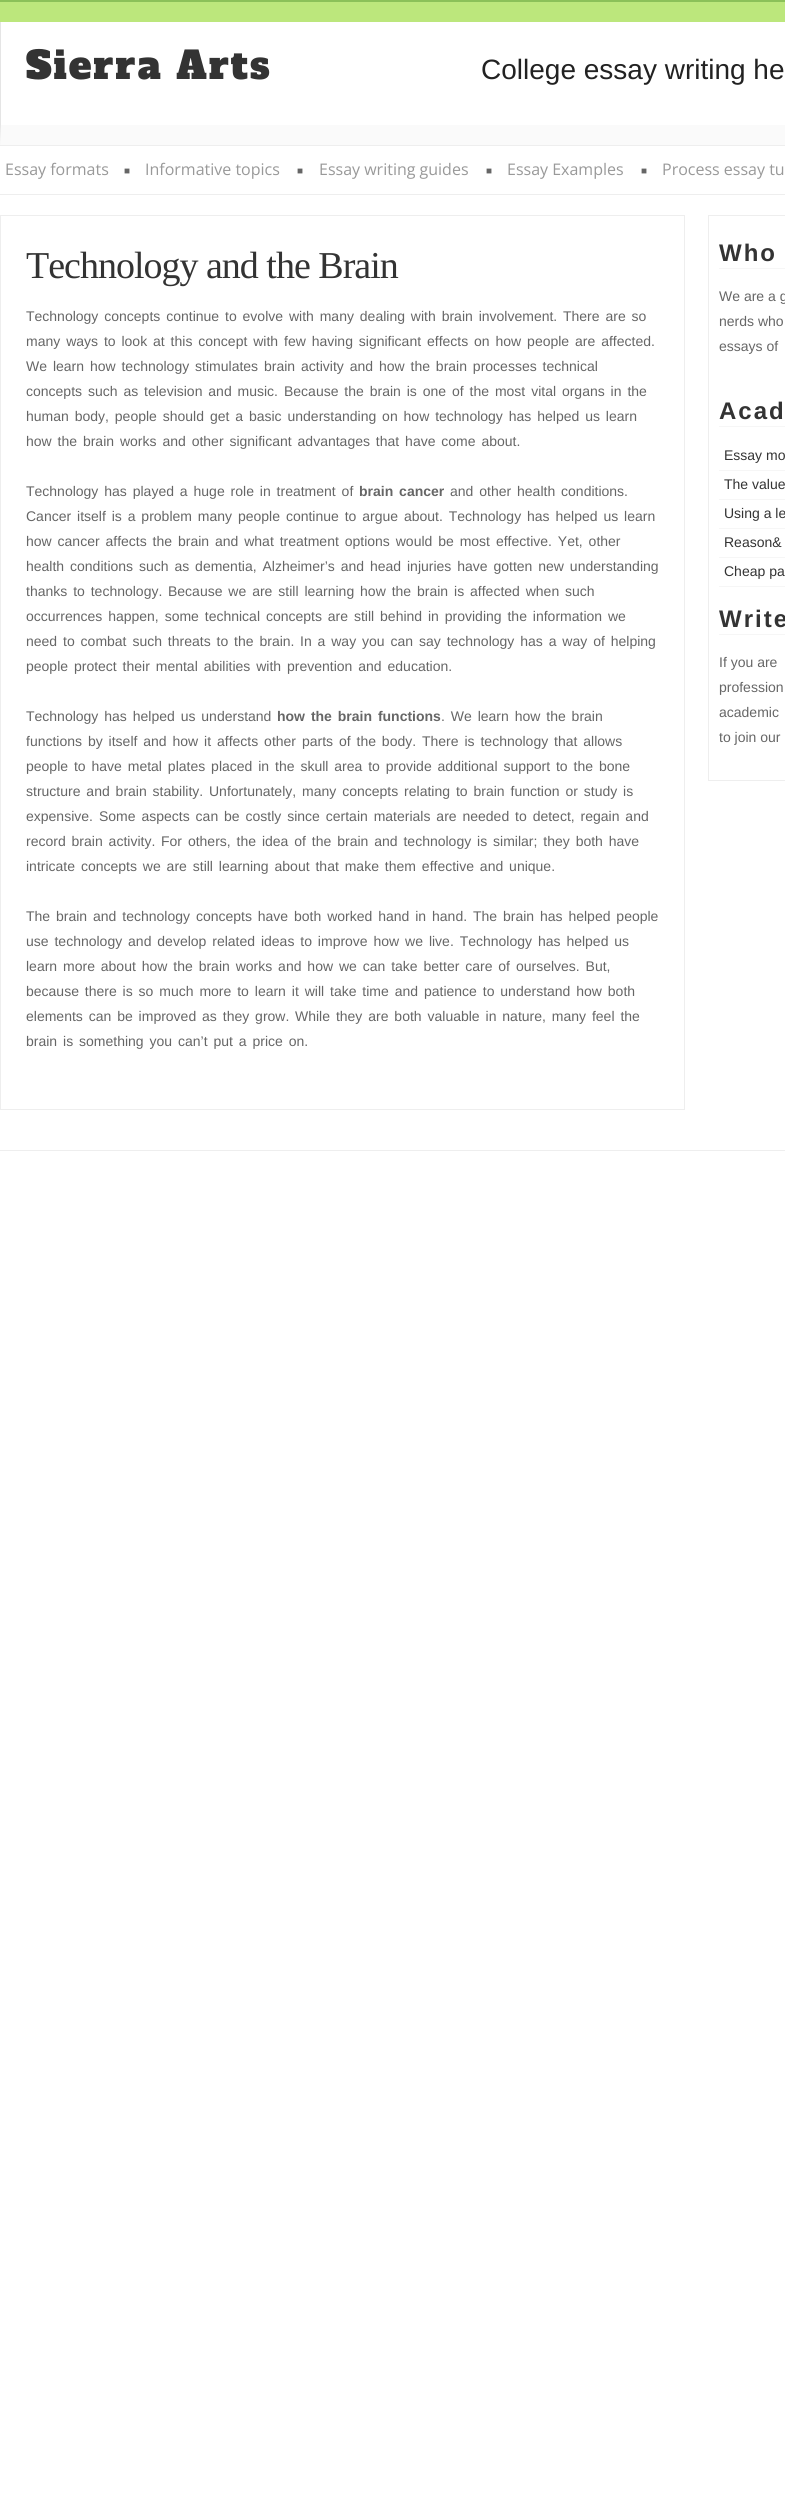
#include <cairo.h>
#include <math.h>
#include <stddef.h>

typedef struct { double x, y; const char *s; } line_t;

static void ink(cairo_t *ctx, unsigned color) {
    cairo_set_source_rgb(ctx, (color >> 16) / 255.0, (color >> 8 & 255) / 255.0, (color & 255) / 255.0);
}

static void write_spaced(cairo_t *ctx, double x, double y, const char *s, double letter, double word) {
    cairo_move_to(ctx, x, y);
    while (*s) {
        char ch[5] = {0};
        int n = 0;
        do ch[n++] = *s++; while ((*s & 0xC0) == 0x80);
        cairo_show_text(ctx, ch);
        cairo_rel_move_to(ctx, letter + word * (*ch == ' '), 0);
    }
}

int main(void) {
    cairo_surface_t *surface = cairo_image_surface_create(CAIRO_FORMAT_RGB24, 785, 2503);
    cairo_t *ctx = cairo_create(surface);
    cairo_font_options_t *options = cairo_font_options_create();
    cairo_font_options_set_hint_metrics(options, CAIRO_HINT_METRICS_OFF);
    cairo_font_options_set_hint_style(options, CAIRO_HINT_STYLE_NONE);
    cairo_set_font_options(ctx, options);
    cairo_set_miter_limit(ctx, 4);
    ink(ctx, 0xFFFFFF);
    cairo_paint(ctx);
    ink(ctx, 0x8BC159);
    cairo_rectangle(ctx, 0, 0, 785, 2);
    cairo_fill(ctx);
    ink(ctx, 0xBCE77C);
    cairo_rectangle(ctx, 0, 2, 785, 20);
    cairo_fill(ctx);
    ink(ctx, 0xFAFAFA);
    cairo_new_path(ctx);
    cairo_move_to(ctx, 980, 145);
    cairo_line_to(ctx, 0, 145);
    cairo_line_to(ctx, 1, 125);
    cairo_line_to(ctx, 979, 125);
    cairo_close_path(ctx);
    cairo_fill(ctx);
    ink(ctx, 0xE5E5E5);
    cairo_new_path(ctx);
    cairo_move_to(ctx, 0, 145);
    cairo_line_to(ctx, 0, 22);
    cairo_line_to(ctx, 1, 22);
    cairo_line_to(ctx, 1, 125);
    cairo_close_path(ctx);
    cairo_fill(ctx);
    cairo_select_font_face(ctx, "Alfa Slab One", CAIRO_FONT_SLANT_NORMAL, CAIRO_FONT_WEIGHT_NORMAL);
    cairo_set_font_size(ctx, 38);
    ink(ctx, 0x333333);
    write_spaced(ctx, 26, 79, "Sierra Arts", 2, 0);
    cairo_select_font_face(ctx, "Liberation Sans", CAIRO_FONT_SLANT_NORMAL, CAIRO_FONT_WEIGHT_NORMAL);
    cairo_set_font_size(ctx, 28);
    ink(ctx, 0x222222);
    cairo_move_to(ctx, 481, 79);
    cairo_show_text(ctx, "College essay writing he");
    ink(ctx, 0xEEEEEE);
    cairo_rectangle(ctx, 0, 145, 785, 1);
    cairo_fill(ctx);
    cairo_rectangle(ctx, 0, 194, 785, 1);
    cairo_fill(ctx);
    cairo_select_font_face(ctx, "Open Sans", CAIRO_FONT_SLANT_NORMAL, CAIRO_FONT_WEIGHT_NORMAL);
    cairo_set_font_size(ctx, 16);
    ink(ctx, 0x999999);
    cairo_move_to(ctx, 5, 175);
    cairo_show_text(ctx, "Essay formats");
    cairo_select_font_face(ctx, "Liberation Sans", CAIRO_FONT_SLANT_NORMAL, CAIRO_FONT_WEIGHT_NORMAL);
    cairo_set_font_size(ctx, 10);
    ink(ctx, 0x666666);
    cairo_move_to(ctx, 124, 174);
    cairo_show_text(ctx, "■");
    cairo_select_font_face(ctx, "Open Sans", CAIRO_FONT_SLANT_NORMAL, CAIRO_FONT_WEIGHT_NORMAL);
    cairo_set_font_size(ctx, 16);
    ink(ctx, 0x999999);
    cairo_move_to(ctx, 145, 175);
    cairo_show_text(ctx, "Informative topics");
    cairo_select_font_face(ctx, "Liberation Sans", CAIRO_FONT_SLANT_NORMAL, CAIRO_FONT_WEIGHT_NORMAL);
    cairo_set_font_size(ctx, 10);
    ink(ctx, 0x666666);
    cairo_move_to(ctx, 297, 174);
    cairo_show_text(ctx, "■");
    cairo_select_font_face(ctx, "Open Sans", CAIRO_FONT_SLANT_NORMAL, CAIRO_FONT_WEIGHT_NORMAL);
    cairo_set_font_size(ctx, 16);
    ink(ctx, 0x999999);
    cairo_move_to(ctx, 319, 175);
    cairo_show_text(ctx, "Essay writing guides");
    cairo_select_font_face(ctx, "Liberation Sans", CAIRO_FONT_SLANT_NORMAL, CAIRO_FONT_WEIGHT_NORMAL);
    cairo_set_font_size(ctx, 10);
    ink(ctx, 0x666666);
    cairo_move_to(ctx, 486, 174);
    cairo_show_text(ctx, "■");
    cairo_select_font_face(ctx, "Open Sans", CAIRO_FONT_SLANT_NORMAL, CAIRO_FONT_WEIGHT_NORMAL);
    cairo_set_font_size(ctx, 16);
    ink(ctx, 0x999999);
    cairo_move_to(ctx, 507, 175);
    cairo_show_text(ctx, "Essay Examples");
    cairo_select_font_face(ctx, "Liberation Sans", CAIRO_FONT_SLANT_NORMAL, CAIRO_FONT_WEIGHT_NORMAL);
    cairo_set_font_size(ctx, 10);
    ink(ctx, 0x666666);
    cairo_move_to(ctx, 641, 174);
    cairo_show_text(ctx, "■");
    cairo_select_font_face(ctx, "Open Sans", CAIRO_FONT_SLANT_NORMAL, CAIRO_FONT_WEIGHT_NORMAL);
    cairo_set_font_size(ctx, 16);
    ink(ctx, 0x999999);
    cairo_move_to(ctx, 662, 175);
    cairo_show_text(ctx, "Process essay tu");
    cairo_rectangle(ctx, 0.5, 215.5, 684, 894);
    ink(ctx, 0xEEEEEE);
    cairo_set_line_width(ctx, 1);
    cairo_stroke(ctx);
    cairo_select_font_face(ctx, "Liberation Serif", CAIRO_FONT_SLANT_NORMAL, CAIRO_FONT_WEIGHT_NORMAL);
    cairo_set_font_size(ctx, 38);
    ink(ctx, 0x333333);
    write_spaced(ctx, 26, 278, "Technology and the Brain", -1, 0);
    cairo_select_font_face(ctx, "Liberation Sans", CAIRO_FONT_SLANT_NORMAL, CAIRO_FONT_WEIGHT_NORMAL);
    cairo_set_font_size(ctx, 14);
    ink(ctx, 0x666666);
    {
        static const line_t items[] = {
            {26, 321, "Technology concepts continue to evolve with many dealing with brain involvement."},
            {563, 321, "There are so"},
            {26, 346, "many ways to look at this concept with few having significant effects on how people are affected."},
            {26, 371, "We learn how technology stimulates brain activity and how the brain processes technical"},
            {26, 396, "concepts such as television and music."},
            {284, 396, "Because the brain is one of the most vital organs in the"},
            {26, 421, "human body, people should get a basic understanding on how technology has helped us learn"},
            {26, 446, "how the brain works and other significant advantages that have come about."},
            {26, 496, "Technology has played a huge role in treatment of"},
        };
        for (size_t i = 0; i < sizeof items / sizeof *items; i++) {
            write_spaced(ctx, items[i].x, items[i].y, items[i].s, 0, 2);
        }
    }
    cairo_select_font_face(ctx, "Liberation Sans", CAIRO_FONT_SLANT_NORMAL, CAIRO_FONT_WEIGHT_BOLD);
    write_spaced(ctx, 359, 496, "brain cancer", 0, 2);
    cairo_select_font_face(ctx, "Liberation Sans", CAIRO_FONT_SLANT_NORMAL, CAIRO_FONT_WEIGHT_NORMAL);
    {
        static const line_t items[] = {
            {450, 496, "and other health conditions."},
            {26, 521, "Cancer itself is a problem many people continue to argue about. Technology has helped us learn"},
            {26, 546, "how cancer affects the brain and what treatment options would be most effective. Yet, other"},
            {26, 571, "health conditions such as dementia, Alzheimer’s and head injuries have gotten new understanding"},
            {26, 596, "thanks to technology."},
            {168, 596, "Because we are still learning how the brain is affected when such"},
            {26, 621, "occurrences happen, some technical concepts are still behind in providing the information we"},
            {26, 646, "need to combat such threats to the brain."},
            {300, 646, "In a way you can say technology has a way of helping"},
            {26, 671, "people protect their mental abilities with prevention and education."},
            {26, 721, "Technology has helped us understand"},
        };
        for (size_t i = 0; i < sizeof items / sizeof *items; i++) {
            write_spaced(ctx, items[i].x, items[i].y, items[i].s, 0, 2);
        }
    }
    cairo_select_font_face(ctx, "Liberation Sans", CAIRO_FONT_SLANT_NORMAL, CAIRO_FONT_WEIGHT_BOLD);
    write_spaced(ctx, 277, 721, "how the brain functions", 0, 2);
    cairo_select_font_face(ctx, "Liberation Sans", CAIRO_FONT_SLANT_NORMAL, CAIRO_FONT_WEIGHT_NORMAL);
    {
        static const line_t items[] = {
            {441, 721, ". We learn how the brain"},
            {26, 746, "functions by itself and how it affects other parts of the body."},
            {422, 746, "There is technology that allows"},
            {26, 771, "people to have metal plates placed in the skull area to provide additional support to the bone"},
            {26, 796, "structure and brain stability."},
            {209, 796, "Unfortunately, many concepts relating to brain function or study is"},
        };
        for (size_t i = 0; i < sizeof items / sizeof *items; i++) {
            write_spaced(ctx, items[i].x, items[i].y, items[i].s, 0, 2);
        }
    }
    cairo_move_to(ctx, 26, 821);
    cairo_show_text(ctx, "expensive.");
    {
        static const line_t items[] = {
            {99, 821, "Some aspects can be costly since certain materials are needed to detect, regain and"},
            {26, 846, "record brain activity."},
            {161, 846, "For others, the idea of the brain and technology is similar; they both have"},
            {26, 871, "intricate concepts we are still learning about that make them effective and unique."},
            {26, 921, "The brain and technology concepts have both worked hand in hand. The brain has helped people"},
            {26, 946, "use technology and develop related ideas to improve how we live. Technology has helped us"},
            {26, 971, "learn more about how the brain works and how we can take better care of ourselves. But,"},
            {26, 996, "because there is so much more to learn it will take time and patience to understand how both"},
            {26, 1021, "elements can be improved as they grow."},
            {295, 1021, "While they are both valuable in nature, many feel the"},
            {26, 1046, "brain is something you can’t put a price on."},
        };
        for (size_t i = 0; i < sizeof items / sizeof *items; i++) {
            write_spaced(ctx, items[i].x, items[i].y, items[i].s, 0, 2);
        }
    }
    cairo_rectangle(ctx, 708.5, 215.5, 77, 565);
    ink(ctx, 0xEEEEEE);
    cairo_stroke(ctx);
    ink(ctx, 0xF6F6F6);
    cairo_rectangle(ctx, 719, 268, 66, 1);
    cairo_fill(ctx);
    cairo_select_font_face(ctx, "Liberation Sans", CAIRO_FONT_SLANT_NORMAL, CAIRO_FONT_WEIGHT_BOLD);
    cairo_set_font_size(ctx, 24);
    ink(ctx, 0x333333);
    write_spaced(ctx, 719, 261, "Who", 2, 0);
    cairo_select_font_face(ctx, "Liberation Sans", CAIRO_FONT_SLANT_NORMAL, CAIRO_FONT_WEIGHT_NORMAL);
    cairo_set_font_size(ctx, 14);
    ink(ctx, 0x666666);
    {
        static const line_t items[] = {
            {719, 301, "We are a g"},
            {719, 326, "nerds who"},
            {719, 351, "essays of"},
        };
        for (size_t i = 0; i < sizeof items / sizeof *items; i++) {
            cairo_move_to(ctx, items[i].x, items[i].y);
            cairo_show_text(ctx, items[i].s);
        }
    }
    ink(ctx, 0xF6F6F6);
    cairo_rectangle(ctx, 719, 426, 66, 1);
    cairo_fill(ctx);
    cairo_select_font_face(ctx, "Liberation Sans", CAIRO_FONT_SLANT_NORMAL, CAIRO_FONT_WEIGHT_BOLD);
    cairo_set_font_size(ctx, 24);
    ink(ctx, 0x333333);
    write_spaced(ctx, 719, 419, "Acad", 2, 0);
    ink(ctx, 0xF6F6F6);
    cairo_rectangle(ctx, 719, 470, 66, 1);
    cairo_fill(ctx);
    cairo_select_font_face(ctx, "Liberation Sans", CAIRO_FONT_SLANT_NORMAL, CAIRO_FONT_WEIGHT_NORMAL);
    cairo_set_font_size(ctx, 14);
    ink(ctx, 0x333333);
    cairo_move_to(ctx, 724, 460);
    cairo_show_text(ctx, "Essay mo");
    ink(ctx, 0xF6F6F6);
    cairo_rectangle(ctx, 719, 499, 66, 1);
    cairo_fill(ctx);
    ink(ctx, 0x333333);
    cairo_move_to(ctx, 724, 489);
    cairo_show_text(ctx, "The value");
    ink(ctx, 0xF6F6F6);
    cairo_rectangle(ctx, 719, 528, 66, 1);
    cairo_fill(ctx);
    ink(ctx, 0x333333);
    cairo_move_to(ctx, 724, 518);
    cairo_show_text(ctx, "Using a le");
    ink(ctx, 0xF6F6F6);
    cairo_rectangle(ctx, 719, 557, 66, 1);
    cairo_fill(ctx);
    ink(ctx, 0x333333);
    cairo_move_to(ctx, 724, 547);
    cairo_show_text(ctx, "Reason&");
    ink(ctx, 0xF6F6F6);
    cairo_rectangle(ctx, 719, 586, 66, 1);
    cairo_fill(ctx);
    ink(ctx, 0x333333);
    cairo_move_to(ctx, 724, 576);
    cairo_show_text(ctx, "Cheap pa");
    ink(ctx, 0xF6F6F6);
    cairo_rectangle(ctx, 719, 634, 66, 1);
    cairo_fill(ctx);
    cairo_select_font_face(ctx, "Liberation Sans", CAIRO_FONT_SLANT_NORMAL, CAIRO_FONT_WEIGHT_BOLD);
    cairo_set_font_size(ctx, 24);
    ink(ctx, 0x333333);
    write_spaced(ctx, 719, 627, "Write", 2, 0);
    cairo_select_font_face(ctx, "Liberation Sans", CAIRO_FONT_SLANT_NORMAL, CAIRO_FONT_WEIGHT_NORMAL);
    cairo_set_font_size(ctx, 14);
    ink(ctx, 0x666666);
    {
        static const line_t items[] = {
            {719, 667, "If you are"},
            {719, 692, "profession"},
            {719, 717, "academic"},
            {719, 742, "to join our"},
        };
        for (size_t i = 0; i < sizeof items / sizeof *items; i++) {
            cairo_move_to(ctx, items[i].x, items[i].y);
            cairo_show_text(ctx, items[i].s);
        }
    }
    ink(ctx, 0xEEEEEE);
    cairo_rectangle(ctx, 0, 1150, 785, 1);
    cairo_fill(ctx);
    cairo_surface_write_to_png(surface, "image.png");
    cairo_font_options_destroy(options);
    cairo_destroy(ctx);
    cairo_surface_destroy(surface);
    return 0;
}
